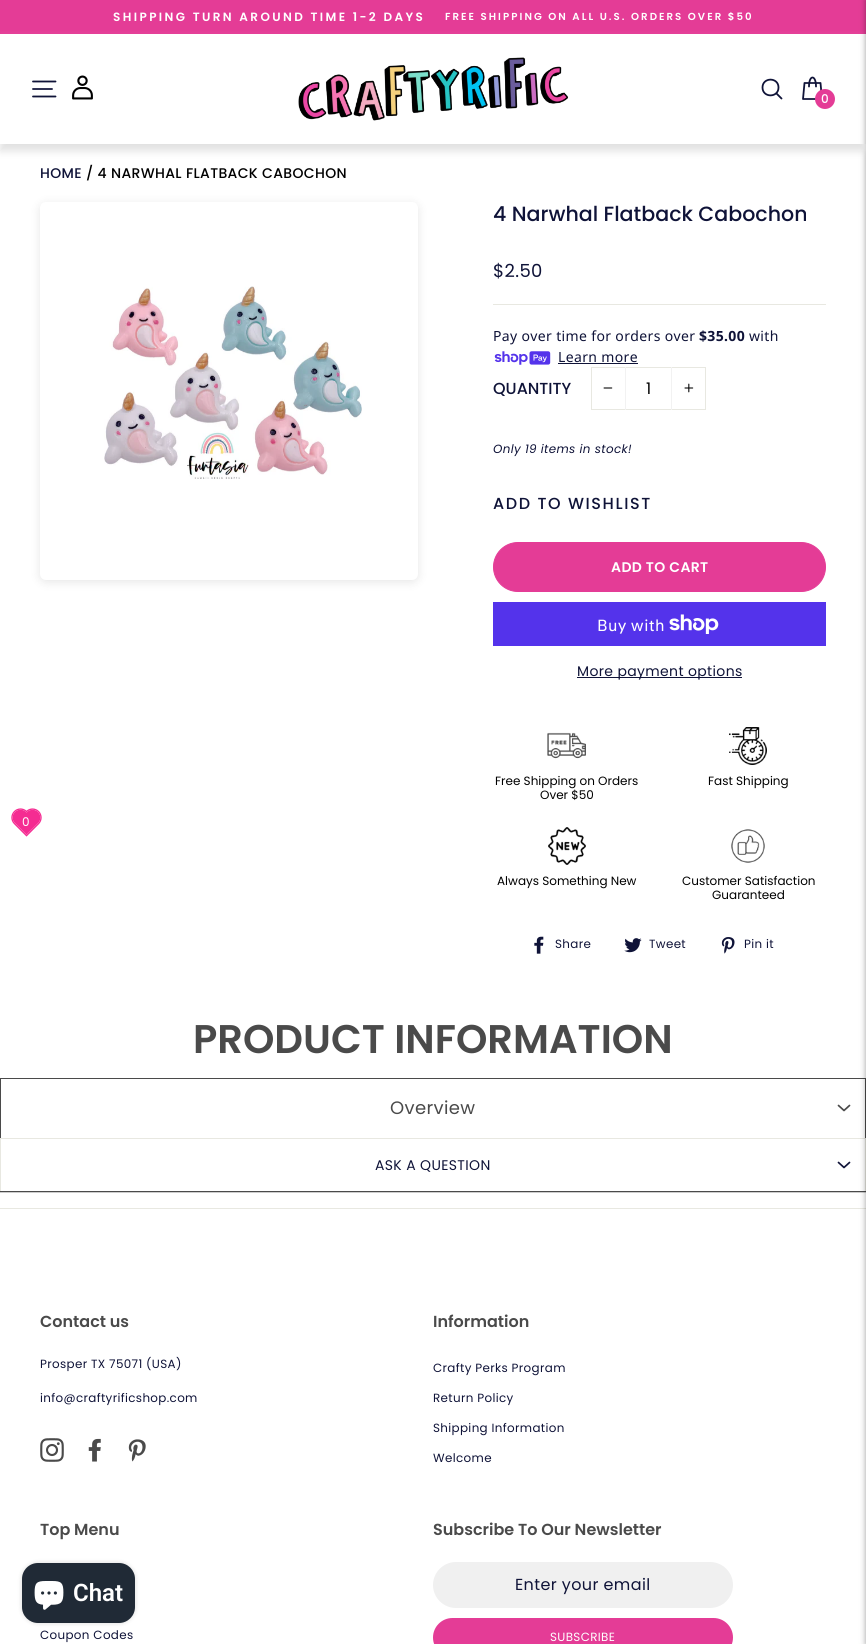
#include <cairo.h>
#include <math.h>
#include <stddef.h>

typedef struct { double x, y; const char *s; } line_t;
typedef struct { double x, y, w, h; unsigned color; } box_t;

static void ink(cairo_t *ctx, unsigned color) {
    cairo_set_source_rgb(ctx, (color >> 16) / 255.0, (color >> 8 & 255) / 255.0, (color & 255) / 255.0);
}

static void write_spaced(cairo_t *ctx, double x, double y, const char *s, double letter, double word) {
    cairo_move_to(ctx, x, y);
    while (*s) {
        char ch[5] = {0};
        int n = 0;
        do ch[n++] = *s++; while ((*s & 0xC0) == 0x80);
        cairo_show_text(ctx, ch);
        cairo_rel_move_to(ctx, letter + word * (*ch == ' '), 0);
    }
}

static void round_path(cairo_t *ctx, double x, double y, double w, double h, double r) {
    cairo_new_sub_path(ctx);
    cairo_arc(ctx, x + w - r, y + h - r, r, 0, M_PI / 2);
    cairo_arc(ctx, x + r, y + h - r, r, M_PI / 2, M_PI);
    cairo_arc(ctx, x + r, y + r, r, M_PI, 1.5 * M_PI);
    cairo_arc(ctx, x + w - r, y + r, r, 1.5 * M_PI, 2 * M_PI);
    cairo_close_path(ctx);
}

static void blur_box(cairo_t *ctx, double x, double y, double w, double h, double r, double blur, double alpha) {
    cairo_push_group_with_content(ctx, CAIRO_CONTENT_ALPHA);
    cairo_set_operator(ctx, CAIRO_OPERATOR_SOURCE);
    for (int i = 15; i >= -15 && fmin(w, h) + blur * i / 3 > 0; i -= 2) {
        double e = blur * i / 6;
        cairo_set_source_rgba(ctx, 0, 0, 0, alpha * erfc((i - 1) / 8.5) / 2);
        round_path(ctx, x - e, y - e, w + 2 * e, h + 2 * e, fmax(0, fmin(r + e + blur * .6, fmin(w, h) / 2 + e)));
        cairo_fill(ctx);
    }
    cairo_pattern_t *soft = cairo_pop_group(ctx);
    cairo_mask(ctx, soft);
    cairo_pattern_destroy(soft);
}

static void paste(cairo_t *ctx, const char *path, double x, double y, double w, double h) {
    cairo_surface_t *image = cairo_image_surface_create_from_png(path);
    cairo_save(ctx);
    cairo_set_source_surface(ctx, image, x, y);
    cairo_rectangle(ctx, x, y, w, h);
    cairo_fill(ctx);
    cairo_restore(ctx);
    cairo_surface_destroy(image);
}

int main(void) {
    cairo_surface_t *surface = cairo_image_surface_create(CAIRO_FORMAT_RGB24, 866, 1644);
    cairo_t *ctx = cairo_create(surface);
    cairo_font_options_t *options = cairo_font_options_create();
    cairo_font_options_set_hint_metrics(options, CAIRO_HINT_METRICS_OFF);
    cairo_font_options_set_hint_style(options, CAIRO_HINT_STYLE_NONE);
    cairo_set_font_options(ctx, options);
    cairo_set_miter_limit(ctx, 4);
    ink(ctx, 0xFFFFFF);
    cairo_paint(ctx);
    paste(ctx, "media/1.png", 11, 808, 31, 29);
    cairo_select_font_face(ctx, "Poppins", CAIRO_FONT_SLANT_NORMAL, CAIRO_FONT_WEIGHT_NORMAL);
    cairo_set_font_size(ctx, 12);
    ink(ctx, 0xFFFFFF);
    write_spaced(ctx, 22, 826, "0", 0.35, 0);
    {
        static const box_t items[] = {
            {0, 0, 866, 34, 0xE43C96},
            {0, 1191, 866, 1, 0x4A4A4A},
            {0, 1078, 866, 1, 0x4A4A4A},
            {865, 1078, 1, 60, 0x4A4A4A},
            {0, 1138, 866, 1, 0xE8E8E1},
            {865, 1138, 1, 53, 0xE8E8E1},
            {0, 1192, 866, 1, 0xCCCCCC},
            {0, 1208, 866, 1, 0xE8E8E1},
        };
        for (size_t i = 0; i < sizeof items / sizeof *items; i++) {
            ink(ctx, items[i].color);
            cairo_rectangle(ctx, items[i].x, items[i].y, items[i].w, items[i].h);
            cairo_fill(ctx);
        }
    }
    ink(ctx, 0x000000);
    blur_box(ctx, 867, 0, 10, 1644, 0, 3.5, 0.5);
    cairo_select_font_face(ctx, "Poppins SemiBold", CAIRO_FONT_SLANT_NORMAL, CAIRO_FONT_WEIGHT_NORMAL);
    ink(ctx, 0xFFFFFF);
    write_spaced(ctx, 113, 21, "SHIPPING TURN AROUND TIME 1-2 DAYS", 2.4, 0);
    cairo_set_font_size(ctx, 10.2);
    write_spaced(ctx, 445, 20, "FREE SHIPPING ON ALL U.S. ORDERS OVER $50", 2.05, 0);
    cairo_save(ctx);
    cairo_set_fill_rule(ctx, CAIRO_FILL_RULE_EVEN_ODD);
    cairo_new_path(ctx);
    cairo_move_to(ctx, 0, 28);
    cairo_line_to(ctx, 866, 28);
    cairo_line_to(ctx, 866, 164);
    cairo_line_to(ctx, 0, 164);
    cairo_close_path(ctx);
    cairo_move_to(ctx, 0, 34);
    cairo_line_to(ctx, 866, 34);
    cairo_line_to(ctx, 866, 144);
    cairo_line_to(ctx, 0, 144);
    cairo_close_path(ctx);
    cairo_clip(ctx);
    ink(ctx, 0xE1E1E1);
    blur_box(ctx, 0, 41, 866, 110, 0, 4, 1);
    cairo_restore(ctx);
    cairo_new_path(ctx);
    cairo_move_to(ctx, 33, 81.5);
    cairo_line_to(ctx, 55.5, 81.5);
    cairo_move_to(ctx, 33, 89);
    cairo_line_to(ctx, 52, 89);
    cairo_move_to(ctx, 33, 96.5);
    cairo_line_to(ctx, 55.5, 96.5);
    ink(ctx, 0x0F1338);
    cairo_set_line_width(ctx, 1.8);
    cairo_set_line_cap(ctx, CAIRO_LINE_CAP_ROUND);
    cairo_set_line_join(ctx, CAIRO_LINE_JOIN_ROUND);
    cairo_stroke(ctx);
    paste(ctx, "media/2.png", 72, 75, 21, 25);
    paste(ctx, "media/3.png", 298, 57, 271, 64);
    cairo_new_path(ctx);
    cairo_move_to(ctx, 778.5, 87.5);
    cairo_curve_to(ctx, 778.5, 98, 762.5, 98, 762.5, 87.5);
    cairo_curve_to(ctx, 762.5, 77, 778.5, 77, 778.5, 87.5);
    cairo_close_path(ctx);
    cairo_move_to(ctx, 781.5, 98.5);
    cairo_line_to(ctx, 776.5, 93.5);
    cairo_move_to(ctx, 809, 86.5);
    cairo_curve_to(ctx, 809, 74.5, 816, 74.5, 816, 86.5);
    cairo_move_to(ctx, 804.5, 83);
    cairo_line_to(ctx, 820.5, 83);
    cairo_line_to(ctx, 822, 99);
    cairo_line_to(ctx, 803, 99);
    cairo_close_path(ctx);
    cairo_stroke(ctx);
    ink(ctx, 0xE43C96);
    cairo_arc(ctx, 825, 99, 10, 0, 2 * M_PI);
    cairo_fill(ctx);
    cairo_select_font_face(ctx, "Poppins Medium", CAIRO_FONT_SLANT_NORMAL, CAIRO_FONT_WEIGHT_NORMAL);
    cairo_set_font_size(ctx, 12);
    ink(ctx, 0xFFFFFF);
    cairo_move_to(ctx, 821, 103);
    cairo_show_text(ctx, "0");
    cairo_set_font_size(ctx, 14);
    ink(ctx, 0x0F1338);
    write_spaced(ctx, 40, 178, "HOME", 0.35, 0);
    ink(ctx, 0x000000);
    write_spaced(ctx, 86, 178, "/ 4 NARWHAL FLATBACK CABOCHON", 0.35, 0);
    ink(ctx, 0x000000);
    blur_box(ctx, 40, 204, 378, 378, 6, 5, 0.1);
    ink(ctx, 0xFFFFFF);
    round_path(ctx, 40, 202, 378, 378, 6);
    cairo_fill(ctx);
    paste(ctx, "media/4.png", 104, 286, 258, 193);
    cairo_set_font_size(ctx, 20.6);
    ink(ctx, 0x0F1338);
    cairo_move_to(ctx, 493, 221);
    cairo_show_text(ctx, "4 Narwhal Flatback Cabochon");
    cairo_select_font_face(ctx, "Poppins", CAIRO_FONT_SLANT_NORMAL, CAIRO_FONT_WEIGHT_NORMAL);
    cairo_set_font_size(ctx, 18);
    write_spaced(ctx, 493, 277, "$2.50", 0.35, 0);
    ink(ctx, 0xE8E8E1);
    cairo_rectangle(ctx, 493, 304, 333, 1);
    cairo_fill(ctx);
    cairo_select_font_face(ctx, "Noto Sans", CAIRO_FONT_SLANT_NORMAL, CAIRO_FONT_WEIGHT_NORMAL);
    cairo_set_font_size(ctx, 14);
    ink(ctx, 0x0F1338);
    write_spaced(ctx, 493, 341, "Pay over time for orders over", 0.35, 0);
    cairo_select_font_face(ctx, "Noto Sans", CAIRO_FONT_SLANT_NORMAL, CAIRO_FONT_WEIGHT_BOLD);
    write_spaced(ctx, 699, 341, "$35.00", 0.35, 0);
    cairo_select_font_face(ctx, "Noto Sans", CAIRO_FONT_SLANT_NORMAL, CAIRO_FONT_WEIGHT_NORMAL);
    write_spaced(ctx, 749, 341, "with", 0.35, 0);
    paste(ctx, "media/5.png", 494, 351, 57, 14);
    write_spaced(ctx, 558, 362, "Learn more", 0.35, 0);
    cairo_rectangle(ctx, 558, 363, 80, 1);
    cairo_fill(ctx);
    cairo_select_font_face(ctx, "Poppins Medium", CAIRO_FONT_SLANT_NORMAL, CAIRO_FONT_WEIGHT_NORMAL);
    cairo_set_font_size(ctx, 16);
    cairo_move_to(ctx, 493, 394);
    cairo_show_text(ctx, "QUANTITY");
    cairo_rectangle(ctx, 591.5, 367.5, 114, 42);
    ink(ctx, 0xE8E8E1);
    cairo_set_line_width(ctx, 1);
    cairo_set_line_cap(ctx, CAIRO_LINE_CAP_BUTT);
    cairo_set_line_join(ctx, CAIRO_LINE_JOIN_MITER);
    cairo_stroke(ctx);
    ink(ctx, 0xF2F2F2);
    cairo_rectangle(ctx, 625, 367, 1, 43);
    cairo_fill(ctx);
    paste(ctx, "media/6.png", 603, 387, 10, 2);
    cairo_select_font_face(ctx, "Poppins", CAIRO_FONT_SLANT_NORMAL, CAIRO_FONT_WEIGHT_NORMAL);
    ink(ctx, 0x000000);
    write_spaced(ctx, 646, 394, "1", 0.4, 0);
    ink(ctx, 0xF2F2F2);
    cairo_rectangle(ctx, 671, 367, 1, 43);
    cairo_fill(ctx);
    paste(ctx, "media/7.png", 684, 383, 10, 10);
    cairo_select_font_face(ctx, "Poppins", CAIRO_FONT_SLANT_ITALIC, CAIRO_FONT_WEIGHT_NORMAL);
    cairo_set_font_size(ctx, 11.9);
    ink(ctx, 0x0F1338);
    write_spaced(ctx, 493, 453, "Only 19 items in stock!", 0.35, 0);
    cairo_select_font_face(ctx, "Poppins Medium", CAIRO_FONT_SLANT_NORMAL, CAIRO_FONT_WEIGHT_NORMAL);
    cairo_set_font_size(ctx, 16);
    write_spaced(ctx, 493, 509, "ADD TO WISHLIST", 1.6, 0);
    ink(ctx, 0xE43C96);
    round_path(ctx, 493.5, 542.5, 332, 49, 24.5);
    cairo_fill_preserve(ctx);
    cairo_stroke(ctx);
    cairo_select_font_face(ctx, "Poppins SemiBold", CAIRO_FONT_SLANT_NORMAL, CAIRO_FONT_WEIGHT_NORMAL);
    cairo_set_font_size(ctx, 14);
    ink(ctx, 0xFFFFFF);
    write_spaced(ctx, 611, 572, "ADD TO CART", 0.35, 0);
    ink(ctx, 0x5433EB);
    cairo_rectangle(ctx, 493, 602, 333, 44);
    cairo_fill(ctx);
    cairo_select_font_face(ctx, "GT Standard", CAIRO_FONT_SLANT_NORMAL, CAIRO_FONT_WEIGHT_NORMAL);
    cairo_set_font_size(ctx, 16);
    ink(ctx, 0xFFFFFF);
    write_spaced(ctx, 597, 631, "Buy with", 0.35, 0);
    paste(ctx, "media/8.png", 669, 614, 50, 20);
    ink(ctx, 0x0F1338);
    cairo_rectangle(ctx, 577, 677, 165, 1);
    cairo_fill(ctx);
    cairo_select_font_face(ctx, "Poppins", CAIRO_FONT_SLANT_NORMAL, CAIRO_FONT_WEIGHT_NORMAL);
    cairo_set_font_size(ctx, 14);
    write_spaced(ctx, 577, 676, "More payment options", 0.35, 0);
    paste(ctx, "media/9.png", 547, 732, 39, 27);
    cairo_set_font_size(ctx, 12);
    ink(ctx, 0x000000);
    cairo_move_to(ctx, 495, 785);
    cairo_show_text(ctx, "Free Shipping on Orders");
    cairo_move_to(ctx, 540, 799);
    cairo_show_text(ctx, "Over $50");
    paste(ctx, "media/10.png", 729, 727, 38, 38);
    cairo_move_to(ctx, 708, 785);
    cairo_show_text(ctx, "Fast Shipping");
    paste(ctx, "media/11.png", 548, 827, 38, 38);
    cairo_move_to(ctx, 497, 885);
    cairo_show_text(ctx, "Always Something New");
    paste(ctx, "media/12.png", 731, 829, 34, 34);
    cairo_move_to(ctx, 682, 885);
    cairo_show_text(ctx, "Customer Satisfaction");
    cairo_move_to(ctx, 712, 899);
    cairo_show_text(ctx, "Guaranteed");
    paste(ctx, "media/13.png", 534, 936, 10, 18);
    cairo_set_font_size(ctx, 11.9);
    ink(ctx, 0x0F1338);
    write_spaced(ctx, 555, 948, "Share", 0.35, 0);
    paste(ctx, "media/14.png", 624, 938, 18, 15);
    write_spaced(ctx, 649, 948, "Tweet", 0.35, 0);
    paste(ctx, "media/15.png", 721, 937, 14, 17);
    write_spaced(ctx, 744, 948, "Pin it", 0.35, 0);
    cairo_select_font_face(ctx, "Poppins SemiBold", CAIRO_FONT_SLANT_NORMAL, CAIRO_FONT_WEIGHT_NORMAL);
    cairo_set_font_size(ctx, 40);
    ink(ctx, 0x4A4A4A);
    cairo_move_to(ctx, 193, 1053);
    cairo_show_text(ctx, "PRODUCT INFORMATION");
    cairo_rectangle(ctx, 0, 1078, 1, 60);
    cairo_fill(ctx);
    cairo_select_font_face(ctx, "Poppins", CAIRO_FONT_SLANT_NORMAL, CAIRO_FONT_WEIGHT_NORMAL);
    cairo_set_font_size(ctx, 18);
    write_spaced(ctx, 390, 1114, "Overview", 0.35, 0);
    cairo_new_path(ctx);
    cairo_move_to(ctx, 838.5, 1105.5);
    cairo_line_to(ctx, 844, 1110.5);
    cairo_line_to(ctx, 849.5, 1105.5);
    cairo_set_line_width(ctx, 1.7);
    cairo_set_line_cap(ctx, CAIRO_LINE_CAP_ROUND);
    cairo_set_line_join(ctx, CAIRO_LINE_JOIN_ROUND);
    cairo_stroke(ctx);
    ink(ctx, 0xE8E8E1);
    cairo_rectangle(ctx, 0, 1138, 1, 53);
    cairo_fill(ctx);
    cairo_set_font_size(ctx, 14);
    ink(ctx, 0x0F1338);
    write_spaced(ctx, 375, 1170, "ASK A QUESTION", 0.35, 0);
    cairo_new_path(ctx);
    cairo_move_to(ctx, 838.5, 1162.5);
    cairo_line_to(ctx, 844, 1167.5);
    cairo_line_to(ctx, 849.5, 1162.5);
    cairo_stroke(ctx);
    cairo_select_font_face(ctx, "Poppins SemiBold", CAIRO_FONT_SLANT_NORMAL, CAIRO_FONT_WEIGHT_NORMAL);
    cairo_set_font_size(ctx, 16);
    ink(ctx, 0x4A4A4A);
    cairo_move_to(ctx, 40, 1327);
    cairo_show_text(ctx, "Contact us");
    cairo_select_font_face(ctx, "Poppins", CAIRO_FONT_SLANT_NORMAL, CAIRO_FONT_WEIGHT_NORMAL);
    cairo_set_font_size(ctx, 11.9);
    ink(ctx, 0x0F1338);
    write_spaced(ctx, 40, 1368, "Prosper TX 75071 (USA)", 0.35, 0);
    write_spaced(ctx, 40, 1402, "info@craftyrificshop.com", 0.35, 0);
    paste(ctx, "media/16.png", 40, 1438, 24, 24);
    paste(ctx, "media/17.png", 88, 1438, 13, 24);
    paste(ctx, "media/18.png", 128, 1439, 18, 23);
    cairo_select_font_face(ctx, "Poppins SemiBold", CAIRO_FONT_SLANT_NORMAL, CAIRO_FONT_WEIGHT_NORMAL);
    cairo_set_font_size(ctx, 16);
    ink(ctx, 0x4A4A4A);
    cairo_move_to(ctx, 433, 1327);
    cairo_show_text(ctx, "Information");
    cairo_select_font_face(ctx, "Poppins", CAIRO_FONT_SLANT_NORMAL, CAIRO_FONT_WEIGHT_NORMAL);
    cairo_set_font_size(ctx, 11.9);
    ink(ctx, 0x0F1338);
    {
        static const line_t items[] = {
            {433, 1372, "Crafty Perks Program"},
            {433, 1402, "Return Policy"},
            {433, 1432, "Shipping Information"},
            {433, 1462, "Welcome"},
        };
        for (size_t i = 0; i < sizeof items / sizeof *items; i++) {
            write_spaced(ctx, items[i].x, items[i].y, items[i].s, 0.35, 0);
        }
    }
    cairo_select_font_face(ctx, "Poppins SemiBold", CAIRO_FONT_SLANT_NORMAL, CAIRO_FONT_WEIGHT_NORMAL);
    cairo_set_font_size(ctx, 16);
    ink(ctx, 0x4A4A4A);
    cairo_move_to(ctx, 40, 1535);
    cairo_show_text(ctx, "Top Menu");
    cairo_select_font_face(ctx, "Poppins", CAIRO_FONT_SLANT_NORMAL, CAIRO_FONT_WEIGHT_NORMAL);
    cairo_set_font_size(ctx, 11.9);
    ink(ctx, 0x0F1338);
    write_spaced(ctx, 40, 1639, "Coupon Codes", 0.35, 0);
    cairo_select_font_face(ctx, "Poppins SemiBold", CAIRO_FONT_SLANT_NORMAL, CAIRO_FONT_WEIGHT_NORMAL);
    cairo_set_font_size(ctx, 16);
    ink(ctx, 0x4A4A4A);
    cairo_move_to(ctx, 433, 1535);
    cairo_show_text(ctx, "Subscribe To Our Newsletter");
    ink(ctx, 0xF0F0F0);
    round_path(ctx, 433, 1562, 300, 46, 23);
    cairo_fill(ctx);
    cairo_select_font_face(ctx, "Poppins", CAIRO_FONT_SLANT_NORMAL, CAIRO_FONT_WEIGHT_NORMAL);
    ink(ctx, 0x0F1338);
    write_spaced(ctx, 515, 1590, "Enter your email", 0.4, 0);
    ink(ctx, 0xE43C96);
    round_path(ctx, 433, 1618, 300, 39, 19.5);
    cairo_fill(ctx);
    cairo_set_font_size(ctx, 11.9);
    ink(ctx, 0xFFFFFF);
    write_spaced(ctx, 550, 1641, "SUBSCRIBE", 0.35, 0);
    ink(ctx, 0x000000);
    blur_box(ctx, 22, 1563, 113, 60, 16, 2.5, 0.15);
    ink(ctx, 0x202A36);
    round_path(ctx, 22, 1563, 113, 60, 16);
    cairo_fill(ctx);
    paste(ctx, "media/19.png", 34, 1581, 30, 29);
    cairo_select_font_face(ctx, "Roboto SemiBold", CAIRO_FONT_SLANT_NORMAL, CAIRO_FONT_WEIGHT_NORMAL);
    cairo_set_font_size(ctx, 24);
    ink(ctx, 0xFFFFFF);
    cairo_move_to(ctx, 73, 1601);
    cairo_show_text(ctx, "Chat");
    cairo_surface_write_to_png(surface, "image.png");
    cairo_font_options_destroy(options);
    cairo_destroy(ctx);
    cairo_surface_destroy(surface);
    return 0;
}
